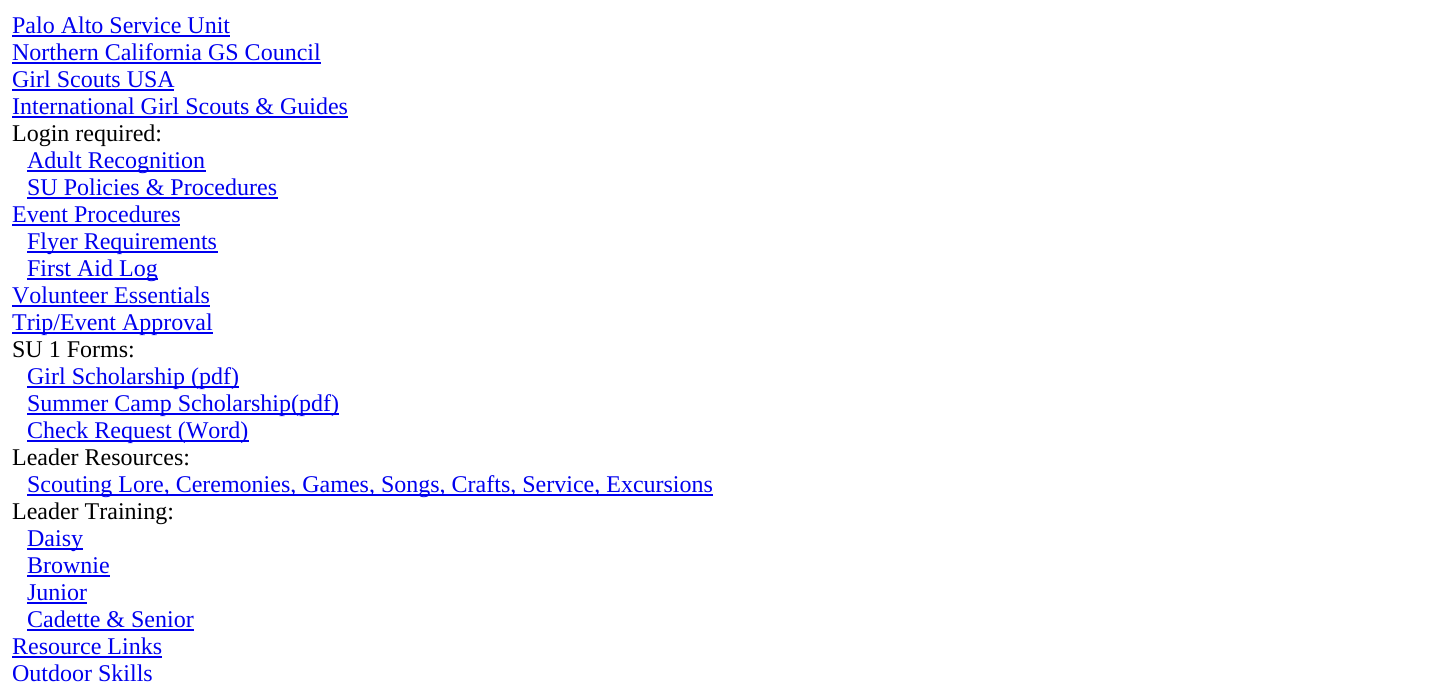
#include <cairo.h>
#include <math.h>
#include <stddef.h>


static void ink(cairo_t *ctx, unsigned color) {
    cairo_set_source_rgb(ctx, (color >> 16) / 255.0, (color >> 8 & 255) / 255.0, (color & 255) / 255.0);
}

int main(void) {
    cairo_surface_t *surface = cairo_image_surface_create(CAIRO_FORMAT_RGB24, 1447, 682);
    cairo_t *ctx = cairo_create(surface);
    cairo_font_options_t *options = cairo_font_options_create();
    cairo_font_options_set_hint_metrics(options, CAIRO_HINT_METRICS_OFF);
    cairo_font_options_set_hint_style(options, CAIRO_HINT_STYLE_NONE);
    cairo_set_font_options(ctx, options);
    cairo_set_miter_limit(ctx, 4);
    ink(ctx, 0xFFFFFF);
    cairo_paint(ctx);
    cairo_select_font_face(ctx, "Liberation Serif", CAIRO_FONT_SLANT_NORMAL, CAIRO_FONT_WEIGHT_NORMAL);
    cairo_set_font_size(ctx, 24);
    ink(ctx, 0x0000EE);
    cairo_move_to(ctx, 12, 33);
    cairo_show_text(ctx, "Palo Alto Service Unit");
    cairo_rectangle(ctx, 12, 35, 218, 2);
    cairo_fill(ctx);
    cairo_move_to(ctx, 12, 60);
    cairo_show_text(ctx, "Northern California GS Council");
    cairo_rectangle(ctx, 12, 62, 309, 2);
    cairo_fill(ctx);
    cairo_move_to(ctx, 12, 87);
    cairo_show_text(ctx, "Girl Scouts USA");
    cairo_rectangle(ctx, 12, 89, 162, 2);
    cairo_fill(ctx);
    cairo_move_to(ctx, 12, 114);
    cairo_show_text(ctx, "International Girl Scouts & Guides");
    cairo_rectangle(ctx, 12, 116, 336, 2);
    cairo_fill(ctx);
    ink(ctx, 0x000000);
    cairo_move_to(ctx, 12, 141);
    cairo_show_text(ctx, "Login required:");
    ink(ctx, 0x0000EE);
    cairo_rectangle(ctx, 27, 170, 179, 2);
    cairo_fill(ctx);
    cairo_move_to(ctx, 27, 168);
    cairo_show_text(ctx, "Adult Recognition");
    cairo_move_to(ctx, 27, 195);
    cairo_show_text(ctx, "SU Policies & Procedures");
    cairo_rectangle(ctx, 27, 197, 251, 2);
    cairo_fill(ctx);
    cairo_move_to(ctx, 12, 222);
    cairo_show_text(ctx, "Event Procedures");
    cairo_rectangle(ctx, 12, 224, 168, 2);
    cairo_fill(ctx);
    cairo_rectangle(ctx, 27, 251, 191, 2);
    cairo_fill(ctx);
    cairo_move_to(ctx, 27, 249);
    cairo_show_text(ctx, "Flyer Requirements");
    cairo_rectangle(ctx, 27, 278, 131, 2);
    cairo_fill(ctx);
    cairo_move_to(ctx, 27, 276);
    cairo_show_text(ctx, "First Aid Log");
    cairo_move_to(ctx, 12, 303);
    cairo_show_text(ctx, "Volunteer Essentials");
    cairo_rectangle(ctx, 12, 305, 198, 2);
    cairo_fill(ctx);
    cairo_rectangle(ctx, 12, 332, 201, 2);
    cairo_fill(ctx);
    cairo_move_to(ctx, 12, 330);
    cairo_show_text(ctx, "Trip/Event Approval");
    ink(ctx, 0x000000);
    cairo_move_to(ctx, 12, 357);
    cairo_show_text(ctx, "SU 1 Forms:");
    ink(ctx, 0x0000EE);
    cairo_rectangle(ctx, 27, 386, 212, 2);
    cairo_fill(ctx);
    cairo_move_to(ctx, 27, 384);
    cairo_show_text(ctx, "Girl Scholarship (pdf)");
    cairo_rectangle(ctx, 27, 413, 312, 2);
    cairo_fill(ctx);
    cairo_move_to(ctx, 27, 411);
    cairo_show_text(ctx, "Summer Camp Scholarship(pdf)");
    cairo_rectangle(ctx, 27, 440, 222, 2);
    cairo_fill(ctx);
    cairo_move_to(ctx, 27, 438);
    cairo_show_text(ctx, "Check Request (Word)");
    ink(ctx, 0x000000);
    cairo_move_to(ctx, 12, 465);
    cairo_show_text(ctx, "Leader Resources:");
    ink(ctx, 0x0000EE);
    cairo_rectangle(ctx, 27, 494, 686, 2);
    cairo_fill(ctx);
    cairo_move_to(ctx, 27, 492);
    cairo_show_text(ctx, "Scouting Lore, Ceremonies, Games, Songs, Crafts, Service, Excursions");
    ink(ctx, 0x000000);
    cairo_move_to(ctx, 12, 519);
    cairo_show_text(ctx, "Leader Training:");
    ink(ctx, 0x0000EE);
    cairo_rectangle(ctx, 27, 548, 56, 2);
    cairo_fill(ctx);
    cairo_move_to(ctx, 27, 546);
    cairo_show_text(ctx, "Daisy");
    cairo_move_to(ctx, 27, 573);
    cairo_show_text(ctx, "Brownie");
    cairo_rectangle(ctx, 27, 575, 83, 2);
    cairo_fill(ctx);
    cairo_move_to(ctx, 27, 600);
    cairo_show_text(ctx, "Junior");
    cairo_rectangle(ctx, 27, 602, 60, 2);
    cairo_fill(ctx);
    cairo_move_to(ctx, 27, 627);
    cairo_show_text(ctx, "Cadette & Senior");
    cairo_rectangle(ctx, 27, 629, 167, 2);
    cairo_fill(ctx);
    cairo_move_to(ctx, 12, 654);
    cairo_show_text(ctx, "Resource Links");
    cairo_rectangle(ctx, 12, 656, 150, 2);
    cairo_fill(ctx);
    cairo_move_to(ctx, 12, 681);
    cairo_show_text(ctx, "Outdoor Skills");
    cairo_surface_write_to_png(surface, "image.png");
    cairo_font_options_destroy(options);
    cairo_destroy(ctx);
    cairo_surface_destroy(surface);
    return 0;
}
